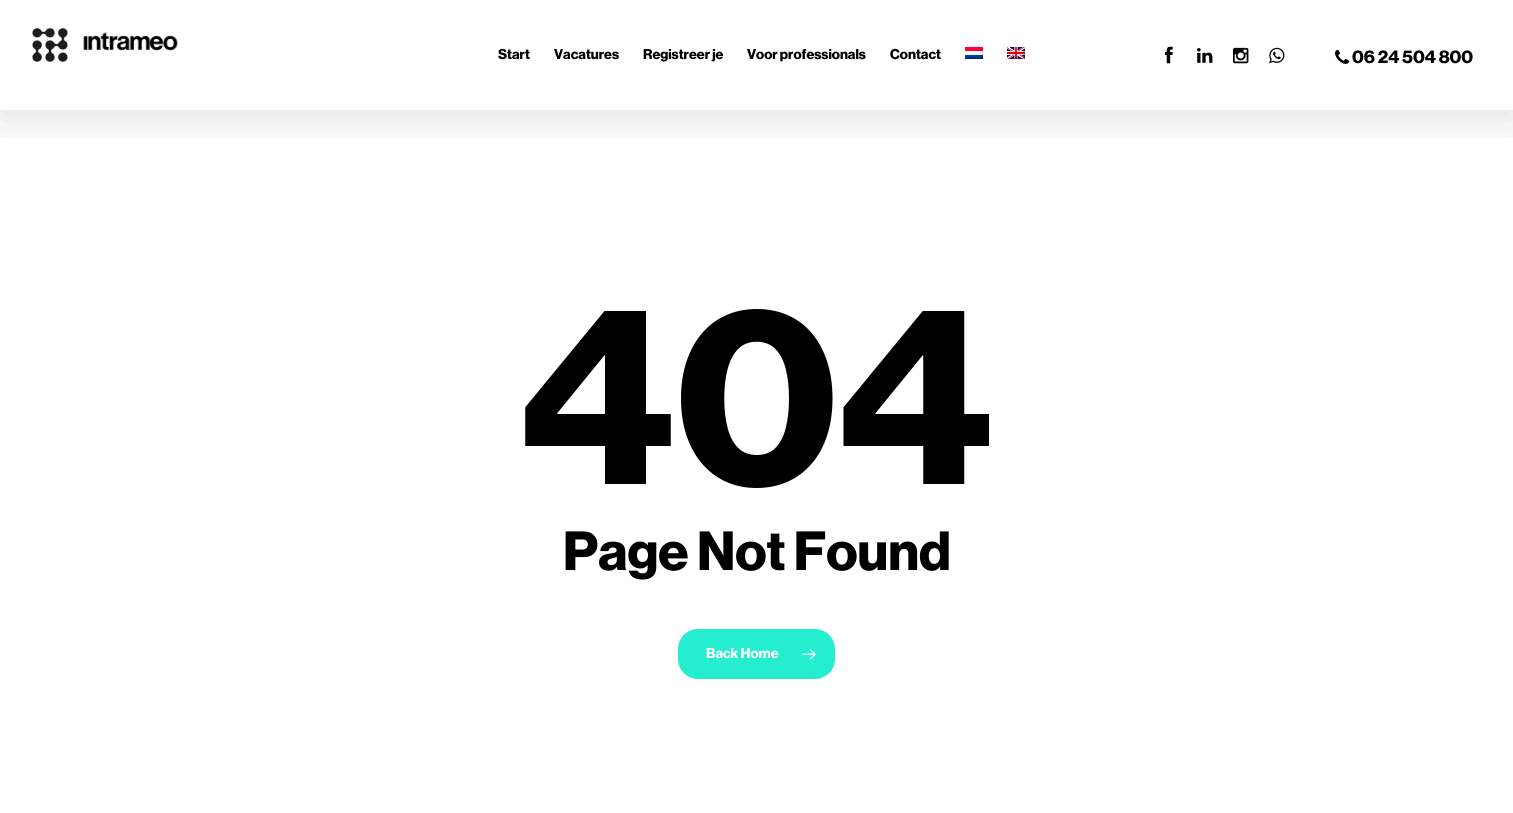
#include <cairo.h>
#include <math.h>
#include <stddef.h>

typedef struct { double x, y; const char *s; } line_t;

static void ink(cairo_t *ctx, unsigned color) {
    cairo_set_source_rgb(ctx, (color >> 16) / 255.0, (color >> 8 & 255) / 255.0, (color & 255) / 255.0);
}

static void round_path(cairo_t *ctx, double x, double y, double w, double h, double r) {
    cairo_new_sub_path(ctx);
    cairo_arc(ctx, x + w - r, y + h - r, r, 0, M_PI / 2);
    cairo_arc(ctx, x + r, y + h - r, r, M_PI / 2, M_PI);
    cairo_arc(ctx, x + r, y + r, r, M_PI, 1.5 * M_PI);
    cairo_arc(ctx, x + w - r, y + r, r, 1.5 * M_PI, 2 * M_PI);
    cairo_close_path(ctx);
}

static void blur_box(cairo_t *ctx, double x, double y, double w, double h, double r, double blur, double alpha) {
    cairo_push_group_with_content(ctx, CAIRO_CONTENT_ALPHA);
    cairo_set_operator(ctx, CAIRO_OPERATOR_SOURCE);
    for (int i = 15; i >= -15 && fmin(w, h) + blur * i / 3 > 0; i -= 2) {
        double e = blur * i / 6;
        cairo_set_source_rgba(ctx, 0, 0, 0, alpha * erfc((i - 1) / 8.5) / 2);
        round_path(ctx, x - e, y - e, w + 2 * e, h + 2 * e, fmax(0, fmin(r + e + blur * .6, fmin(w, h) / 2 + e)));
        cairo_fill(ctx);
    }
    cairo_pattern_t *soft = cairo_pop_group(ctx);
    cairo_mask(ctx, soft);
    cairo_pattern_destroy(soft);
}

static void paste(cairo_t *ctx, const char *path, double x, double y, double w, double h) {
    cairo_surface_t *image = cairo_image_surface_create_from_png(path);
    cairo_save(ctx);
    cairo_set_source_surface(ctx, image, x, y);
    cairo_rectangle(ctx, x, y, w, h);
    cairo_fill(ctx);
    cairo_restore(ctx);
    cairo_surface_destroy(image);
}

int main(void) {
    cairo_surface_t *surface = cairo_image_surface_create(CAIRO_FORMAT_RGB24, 1513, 813);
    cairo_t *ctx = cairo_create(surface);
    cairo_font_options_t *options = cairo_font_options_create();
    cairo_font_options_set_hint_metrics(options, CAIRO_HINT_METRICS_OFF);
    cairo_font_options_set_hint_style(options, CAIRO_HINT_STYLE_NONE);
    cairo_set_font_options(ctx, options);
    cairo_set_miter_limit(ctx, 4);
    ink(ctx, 0xFFFFFF);
    cairo_paint(ctx);
    cairo_save(ctx);
    cairo_rectangle(ctx, 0, 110, 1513, 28);
    cairo_clip(ctx);
    ink(ctx, 0x000000);
    blur_box(ctx, 0, 3, 1513, 110, 0, 22.5, 0.15);
    cairo_restore(ctx);
    paste(ctx, "media/1.png", 32, 28, 36, 34);
    paste(ctx, "media/2.png", 83, 32, 95, 19);
    cairo_select_font_face(ctx, "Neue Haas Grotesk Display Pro", CAIRO_FONT_SLANT_NORMAL, CAIRO_FONT_WEIGHT_BOLD);
    cairo_set_font_size(ctx, 14);
    ink(ctx, 0x000000);
    {
        static const line_t items[] = {
            {498, 59, "Start"},
            {554, 59, "Vacatures"},
            {643, 59, "Registreer je"},
            {747, 59, "Voor professionals"},
            {890, 59, "Contact"},
        };
        for (size_t i = 0; i < sizeof items / sizeof *items; i++) {
            cairo_move_to(ctx, items[i].x, items[i].y);
            cairo_show_text(ctx, items[i].s);
        }
    }
    paste(ctx, "media/3.png", 965, 47, 18, 12);
    paste(ctx, "media/4.png", 1007, 47, 18, 12);
    paste(ctx, "media/5.png", 1165, 46, 8, 18);
    paste(ctx, "media/6.png", 1197, 48, 16, 15);
    paste(ctx, "media/7.png", 1233, 47, 16, 17);
    paste(ctx, "media/8.png", 1269, 47, 16, 17);
    paste(ctx, "media/9.png", 1335, 49, 15, 15);
    cairo_set_font_size(ctx, 18);
    cairo_move_to(ctx, 1352, 63);
    cairo_show_text(ctx, "06 24 504 800");
    cairo_set_font_size(ctx, 250);
    cairo_move_to(ctx, 520, 484);
    cairo_show_text(ctx, "404");
    cairo_set_font_size(ctx, 54);
    cairo_move_to(ctx, 563, 570);
    cairo_show_text(ctx, "Page Not Found");
    ink(ctx, 0x24EECF);
    round_path(ctx, 678, 629, 157, 50, 20);
    cairo_fill(ctx);
    cairo_set_font_size(ctx, 14);
    ink(ctx, 0xFFFFFF);
    cairo_move_to(ctx, 706, 658);
    cairo_show_text(ctx, "Back Home");
    paste(ctx, "media/10.png", 802, 649, 14, 11);
    cairo_surface_write_to_png(surface, "image.png");
    cairo_font_options_destroy(options);
    cairo_destroy(ctx);
    cairo_surface_destroy(surface);
    return 0;
}
